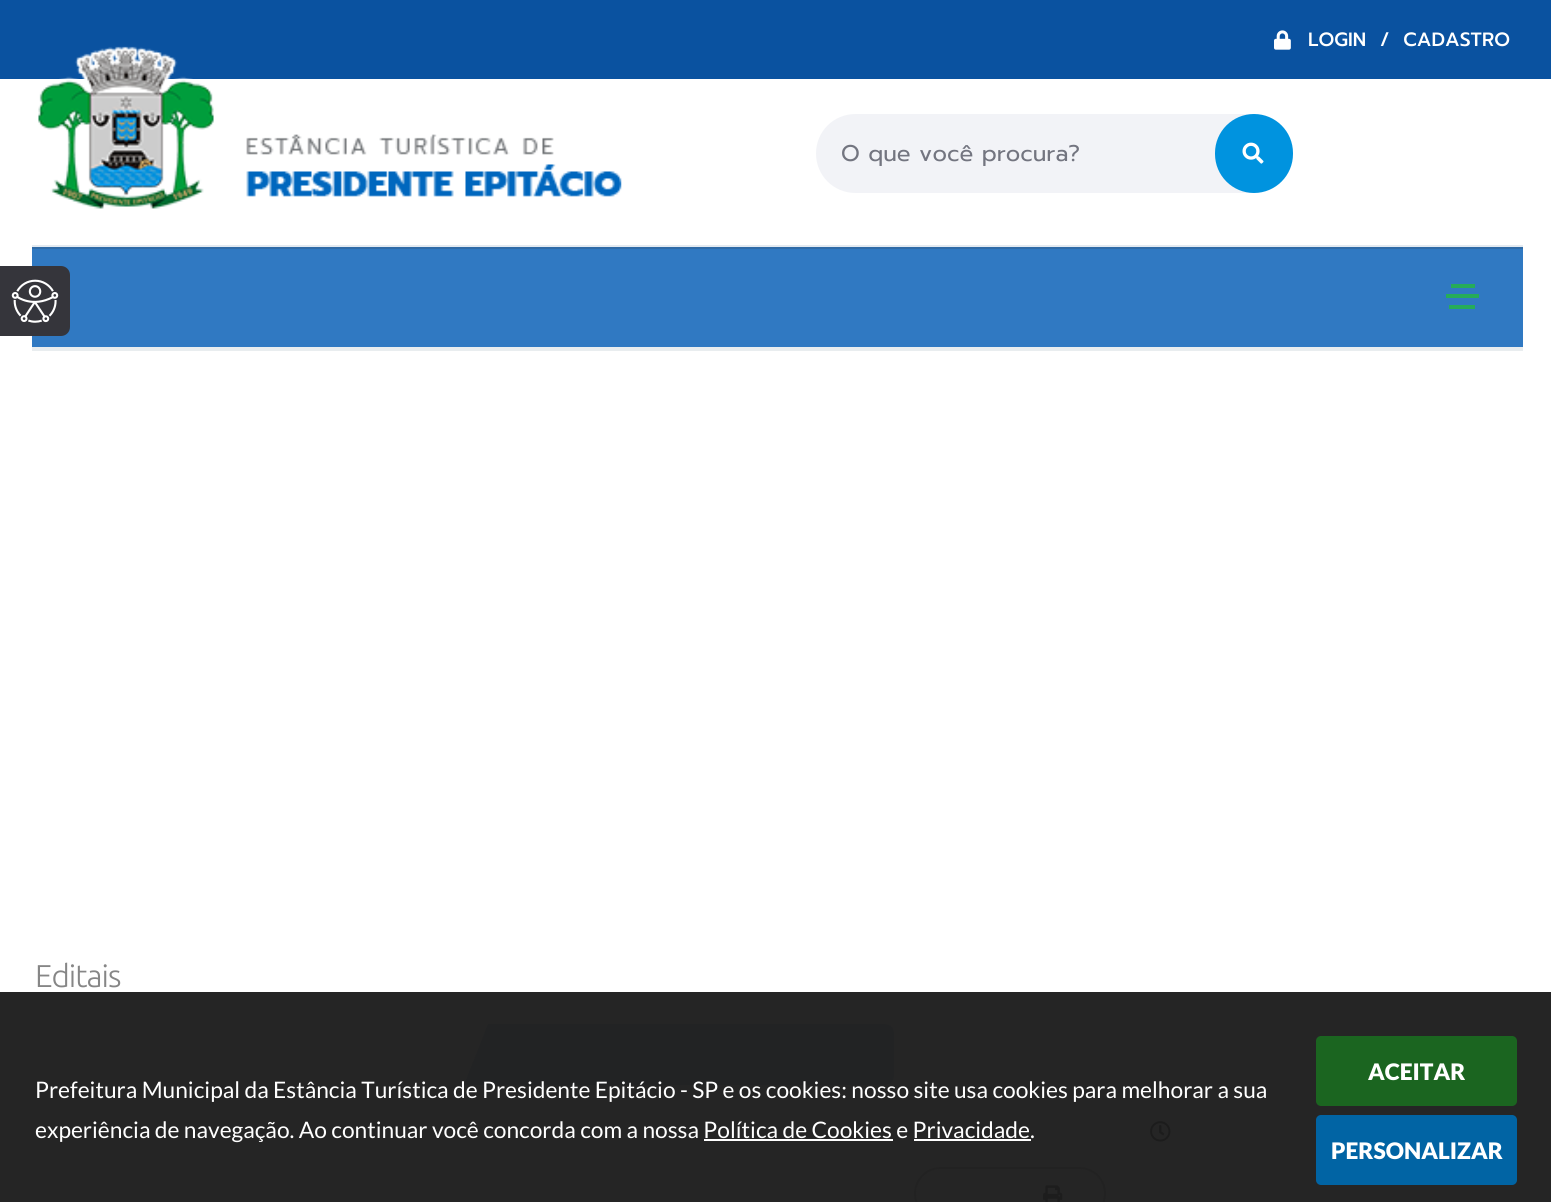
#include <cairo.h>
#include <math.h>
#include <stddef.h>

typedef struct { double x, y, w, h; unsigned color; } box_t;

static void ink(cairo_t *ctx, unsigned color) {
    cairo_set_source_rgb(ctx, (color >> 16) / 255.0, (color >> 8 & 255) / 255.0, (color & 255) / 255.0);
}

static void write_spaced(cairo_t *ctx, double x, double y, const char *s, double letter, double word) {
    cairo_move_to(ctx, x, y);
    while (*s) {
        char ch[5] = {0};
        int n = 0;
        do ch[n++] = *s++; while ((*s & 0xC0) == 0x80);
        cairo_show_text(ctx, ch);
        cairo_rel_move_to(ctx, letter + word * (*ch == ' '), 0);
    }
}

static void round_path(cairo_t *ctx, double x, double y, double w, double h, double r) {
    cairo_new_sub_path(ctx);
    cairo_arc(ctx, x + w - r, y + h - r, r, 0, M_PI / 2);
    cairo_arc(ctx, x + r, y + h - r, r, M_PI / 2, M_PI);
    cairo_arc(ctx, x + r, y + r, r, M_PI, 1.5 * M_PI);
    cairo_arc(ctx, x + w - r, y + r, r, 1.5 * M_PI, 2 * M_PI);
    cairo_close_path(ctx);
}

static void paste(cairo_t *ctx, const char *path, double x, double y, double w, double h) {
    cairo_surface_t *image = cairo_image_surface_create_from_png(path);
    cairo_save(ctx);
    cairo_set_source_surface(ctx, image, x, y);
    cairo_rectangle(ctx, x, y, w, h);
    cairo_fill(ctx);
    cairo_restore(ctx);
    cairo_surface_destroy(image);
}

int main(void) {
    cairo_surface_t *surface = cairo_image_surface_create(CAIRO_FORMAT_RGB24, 1551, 1202);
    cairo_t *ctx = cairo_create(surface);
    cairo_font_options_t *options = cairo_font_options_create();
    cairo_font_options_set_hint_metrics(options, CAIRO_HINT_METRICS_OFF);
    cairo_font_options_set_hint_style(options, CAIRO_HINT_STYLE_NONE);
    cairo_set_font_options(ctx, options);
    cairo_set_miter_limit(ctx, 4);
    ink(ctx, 0xFFFFFF);
    cairo_paint(ctx);
    ink(ctx, 0x252525);
    cairo_rectangle(ctx, 0, 992, 1551, 210);
    cairo_fill(ctx);
    ink(ctx, 0x0A52A0);
    cairo_rectangle(ctx, 0, 0, 1551, 79);
    cairo_fill(ctx);
    paste(ctx, "media/1.png", 1274, 30, 17, 20);
    cairo_select_font_face(ctx, "Prompt Medium", CAIRO_FONT_SLANT_NORMAL, CAIRO_FONT_WEIGHT_NORMAL);
    cairo_set_font_size(ctx, 19.25);
    ink(ctx, 0xFFFFFF);
    cairo_move_to(ctx, 1308, 46);
    cairo_show_text(ctx, "LOGIN  /  CADASTRO");
    paste(ctx, "media/2.png", 38, 46, 584, 163);
    ink(ctx, 0xF2F3F7);
    cairo_new_path(ctx);
    cairo_move_to(ctx, 855.5, 114);
    cairo_line_to(ctx, 1253, 114);
    cairo_line_to(ctx, 1253, 193);
    cairo_line_to(ctx, 855.5, 193);
    cairo_curve_to(ctx, 833.5, 193, 816, 175.5, 816, 153.5);
    cairo_curve_to(ctx, 816, 131.5, 833.5, 114, 855.5, 114);
    cairo_close_path(ctx);
    cairo_fill(ctx);
    cairo_select_font_face(ctx, "Prompt", CAIRO_FONT_SLANT_NORMAL, CAIRO_FONT_WEIGHT_NORMAL);
    cairo_set_font_size(ctx, 22.75);
    ink(ctx, 0x737580);
    cairo_move_to(ctx, 841, 161);
    cairo_show_text(ctx, "O que você procura?");
    ink(ctx, 0x0093DF);
    round_path(ctx, 1216, 115, 76, 77, 38);
    cairo_fill_preserve(ctx);
    cairo_stroke(ctx);
    paste(ctx, "media/3.png", 1242, 142, 22, 22);
    {
        static const box_t items[] = {
            {32, 245, 1491, 2, 0xE3EAF1},
            {32, 347, 1491, 4, 0xE9EDEF},
            {32, 249, 1491, 98, 0x3079C2},
            {32, 247, 1491, 2, 0x306BA7},
            {1451, 284, 24, 4, 0x26AC59},
            {1446, 294, 33, 4, 0x26AC59},
            {1449, 305, 26, 4, 0x26AC59},
        };
        for (size_t i = 0; i < sizeof items / sizeof *items; i++) {
            ink(ctx, items[i].color);
            cairo_rectangle(ctx, items[i].x, items[i].y, items[i].w, items[i].h);
            cairo_fill(ctx);
        }
    }
    ink(ctx, 0x222324);
    cairo_new_path(ctx);
    cairo_move_to(ctx, 488, 1024);
    cairo_line_to(ctx, 885, 1024);
    cairo_curve_to(ctx, 890, 1024, 894, 1028, 894, 1033);
    cairo_line_to(ctx, 894, 1076);
    cairo_curve_to(ctx, 894, 1081, 890, 1085, 885, 1085);
    cairo_line_to(ctx, 488, 1085);
    cairo_close_path(ctx);
    cairo_fill(ctx);
    cairo_new_path(ctx);
    cairo_move_to(ctx, 488, 1085);
    cairo_line_to(ctx, 464, 1085);
    cairo_line_to(ctx, 488, 1024);
    cairo_close_path(ctx);
    cairo_fill(ctx);
    cairo_select_font_face(ctx, "Lato", CAIRO_FONT_SLANT_NORMAL, CAIRO_FONT_WEIGHT_NORMAL);
    ink(ctx, 0xFFFFFF);
    cairo_move_to(ctx, 35, 1098);
    cairo_show_text(ctx, "Prefeitura Municipal da Estância Turística de Presidente Epitácio - SP e os cookies: nosso site usa cookies para melhorar a sua");
    cairo_move_to(ctx, 35, 1138);
    cairo_show_text(ctx, "experiência de navegação. Ao continuar você concorda com a nossa Política de Cookies e Privacidade.");
    cairo_rectangle(ctx, 704, 1139, 189, 2);
    cairo_fill(ctx);
    cairo_rectangle(ctx, 914, 1139, 117, 2);
    cairo_fill(ctx);
    ink(ctx, 0x1B6520);
    round_path(ctx, 1316, 1036, 201, 70, 5);
    cairo_fill(ctx);
    cairo_select_font_face(ctx, "Lato Black", CAIRO_FONT_SLANT_NORMAL, CAIRO_FONT_WEIGHT_NORMAL);
    ink(ctx, 0xFFFFFF);
    cairo_move_to(ctx, 1368, 1080);
    cairo_show_text(ctx, "ACEITAR");
    ink(ctx, 0x0164A4);
    round_path(ctx, 1316, 1115, 201, 70, 5);
    cairo_fill(ctx);
    ink(ctx, 0xFFFFFF);
    cairo_move_to(ctx, 1331, 1159);
    cairo_show_text(ctx, "PERSONALIZAR");
    ink(ctx, 0x35353B);
    cairo_new_path(ctx);
    cairo_move_to(ctx, 0, 266);
    cairo_line_to(ctx, 61, 266);
    cairo_curve_to(ctx, 66, 266, 70, 270, 70, 275);
    cairo_line_to(ctx, 70, 327);
    cairo_curve_to(ctx, 70, 332, 66, 336, 61, 336);
    cairo_line_to(ctx, 0, 336);
    cairo_close_path(ctx);
    cairo_fill(ctx);
    paste(ctx, "media/4.png", 11, 279, 48, 44);
    cairo_select_font_face(ctx, "Ubuntu Light", CAIRO_FONT_SLANT_NORMAL, CAIRO_FONT_WEIGHT_NORMAL);
    cairo_set_font_size(ctx, 31.5);
    ink(ctx, 0x868686);
    write_spaced(ctx, 35, 987, "Editais", -1, 0);
    paste(ctx, "media/5.png", 1150, 1121, 21, 21);
    round_path(ctx, 915, 1168, 190, 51, 25.5);
    ink(ctx, 0x222222);
    cairo_stroke(ctx);
    paste(ctx, "media/6.png", 1043, 1185, 20, 17);
    cairo_surface_write_to_png(surface, "image.png");
    cairo_font_options_destroy(options);
    cairo_destroy(ctx);
    cairo_surface_destroy(surface);
    return 0;
}
